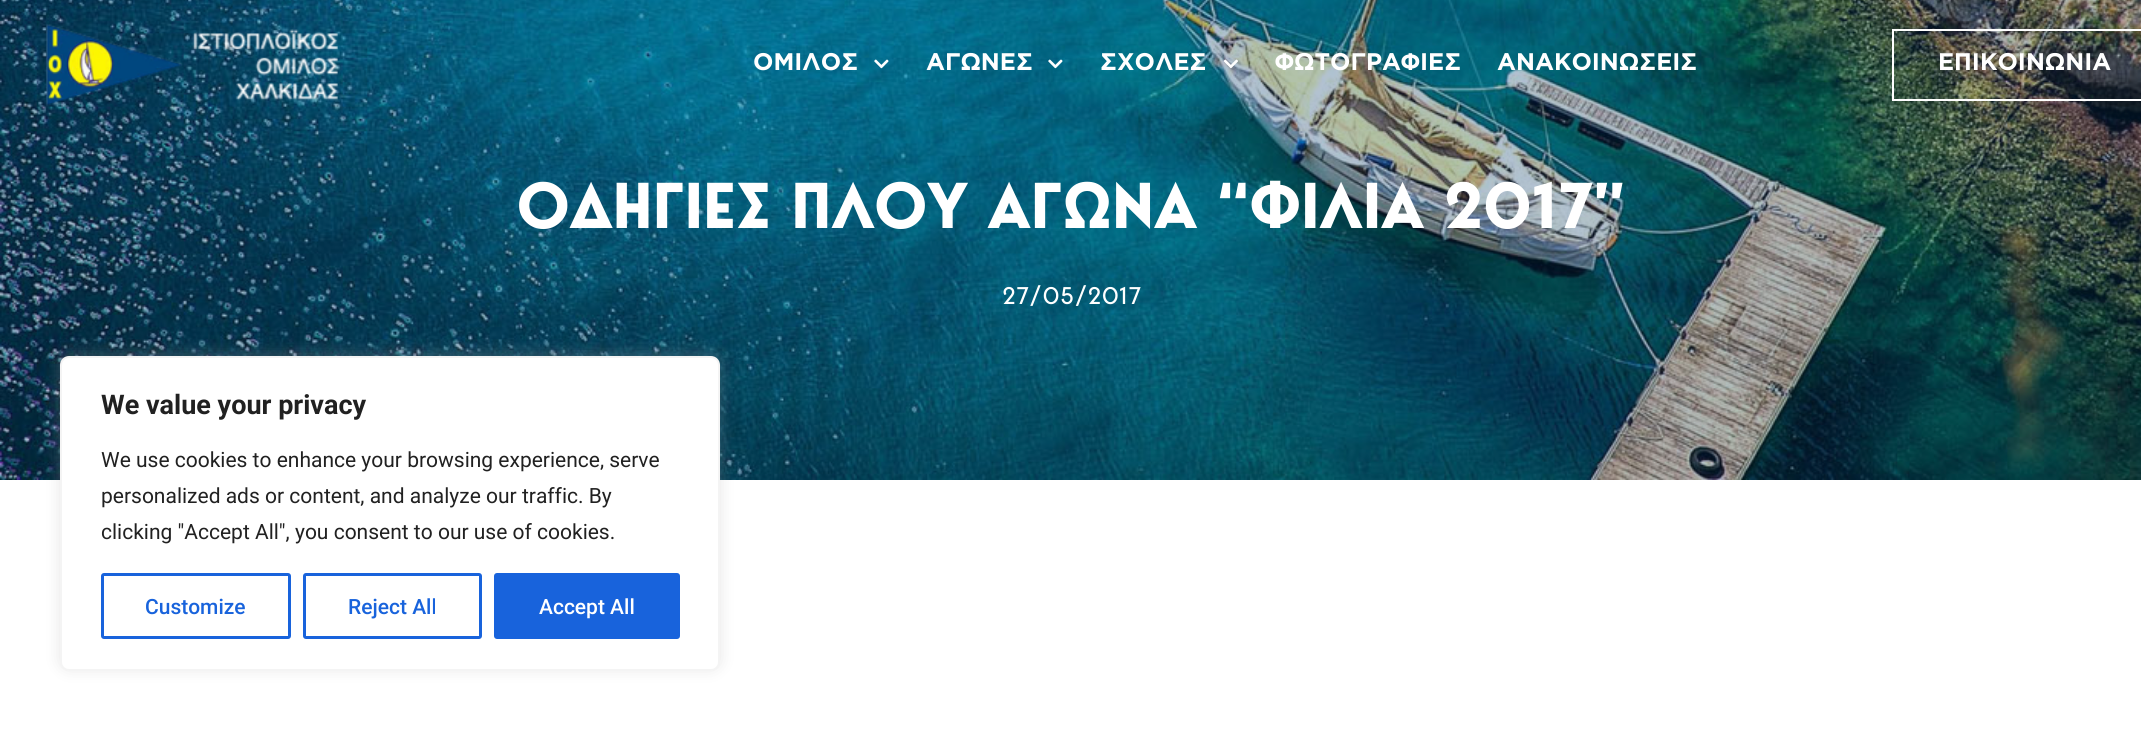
#include <cairo.h>
#include <math.h>
#include <stddef.h>

typedef struct { double x, y; const char *s; } line_t;

static void ink(cairo_t *ctx, unsigned color) {
    cairo_set_source_rgb(ctx, (color >> 16) / 255.0, (color >> 8 & 255) / 255.0, (color & 255) / 255.0);
}

static void round_path(cairo_t *ctx, double x, double y, double w, double h, double r) {
    cairo_new_sub_path(ctx);
    cairo_arc(ctx, x + w - r, y + h - r, r, 0, M_PI / 2);
    cairo_arc(ctx, x + r, y + h - r, r, M_PI / 2, M_PI);
    cairo_arc(ctx, x + r, y + r, r, M_PI, 1.5 * M_PI);
    cairo_arc(ctx, x + w - r, y + r, r, 1.5 * M_PI, 2 * M_PI);
    cairo_close_path(ctx);
}

static void blur_box(cairo_t *ctx, double x, double y, double w, double h, double r, double blur, double alpha) {
    cairo_push_group_with_content(ctx, CAIRO_CONTENT_ALPHA);
    cairo_set_operator(ctx, CAIRO_OPERATOR_SOURCE);
    for (int i = 15; i >= -15 && fmin(w, h) + blur * i / 3 > 0; i -= 2) {
        double e = blur * i / 6;
        cairo_set_source_rgba(ctx, 0, 0, 0, alpha * erfc((i - 1) / 8.5) / 2);
        round_path(ctx, x - e, y - e, w + 2 * e, h + 2 * e, fmax(0, fmin(r + e + blur * .6, fmin(w, h) / 2 + e)));
        cairo_fill(ctx);
    }
    cairo_pattern_t *soft = cairo_pop_group(ctx);
    cairo_mask(ctx, soft);
    cairo_pattern_destroy(soft);
}

static void paste(cairo_t *ctx, const char *path, double x, double y, double w, double h) {
    cairo_surface_t *image = cairo_image_surface_create_from_png(path);
    cairo_save(ctx);
    cairo_set_source_surface(ctx, image, x, y);
    cairo_rectangle(ctx, x, y, w, h);
    cairo_fill(ctx);
    cairo_restore(ctx);
    cairo_surface_destroy(image);
}

int main(void) {
    cairo_surface_t *surface = cairo_image_surface_create(CAIRO_FORMAT_RGB24, 2141, 730);
    cairo_t *ctx = cairo_create(surface);
    cairo_font_options_t *options = cairo_font_options_create();
    cairo_font_options_set_hint_metrics(options, CAIRO_HINT_METRICS_OFF);
    cairo_font_options_set_hint_style(options, CAIRO_HINT_STYLE_NONE);
    cairo_set_font_options(ctx, options);
    cairo_set_miter_limit(ctx, 4);
    ink(ctx, 0xFFFFFF);
    cairo_paint(ctx);
    paste(ctx, "media/5.png", 0, 0, 2141, 480);
    paste(ctx, "media/1.png", 46, 24, 292, 82);
    cairo_select_font_face(ctx, "Gotham", CAIRO_FONT_SLANT_NORMAL, CAIRO_FONT_WEIGHT_BOLD);
    cairo_set_font_size(ctx, 24);
    ink(ctx, 0xFFFFFF);
    cairo_move_to(ctx, 753, 70);
    cairo_show_text(ctx, "ΟΜΙΛΟΣ");
    paste(ctx, "media/2.png", 874, 59, 15, 10);
    cairo_move_to(ctx, 926, 70);
    cairo_show_text(ctx, "ΑΓΩΝΕΣ");
    paste(ctx, "media/3.png", 1048, 59, 15, 10);
    cairo_move_to(ctx, 1100, 70);
    cairo_show_text(ctx, "ΣΧΟΛΕΣ");
    paste(ctx, "media/4.png", 1223, 59, 15, 10);
    cairo_move_to(ctx, 1275, 70);
    cairo_show_text(ctx, "ΦΩΤΟΓΡΑΦΙΕΣ");
    cairo_move_to(ctx, 1497, 70);
    cairo_show_text(ctx, "ΑΝΑΚΟΙΝΩΣΕΙΣ");
    cairo_rectangle(ctx, 1893, 30, 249, 70);
    cairo_stroke(ctx);
    cairo_move_to(ctx, 1938, 70);
    cairo_show_text(ctx, "ΕΠΙΚΟΙΝΩΝΙΑ");
    cairo_select_font_face(ctx, "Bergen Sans", CAIRO_FONT_SLANT_NORMAL, CAIRO_FONT_WEIGHT_BOLD);
    cairo_set_font_size(ctx, 64.25);
    cairo_move_to(ctx, 517, 228);
    cairo_show_text(ctx, "ΟΔΗΓΙΕΣ ΠΛΟΥ ΑΓΩΝΑ “ΦΙΛΙΑ 2017”");
    cairo_select_font_face(ctx, "Bergen Sans", CAIRO_FONT_SLANT_NORMAL, CAIRO_FONT_WEIGHT_NORMAL);
    cairo_set_font_size(ctx, 24);
    cairo_move_to(ctx, 1002, 304);
    cairo_show_text(ctx, "27/05/2017");
    ink(ctx, 0xACABAB);
    blur_box(ctx, 60, 354, 660, 315, 9, 7.5, 0.3);
    ink(ctx, 0xFFFFFF);
    round_path(ctx, 61, 357, 658, 313, 8);
    cairo_fill_preserve(ctx);
    ink(ctx, 0xF4F4F4);
    cairo_stroke(ctx);
    cairo_select_font_face(ctx, "Roboto", CAIRO_FONT_SLANT_NORMAL, CAIRO_FONT_WEIGHT_BOLD);
    cairo_set_font_size(ctx, 27);
    ink(ctx, 0x212121);
    cairo_move_to(ctx, 101, 414);
    cairo_show_text(ctx, "We value your privacy");
    cairo_select_font_face(ctx, "Roboto", CAIRO_FONT_SLANT_NORMAL, CAIRO_FONT_WEIGHT_NORMAL);
    cairo_set_font_size(ctx, 21);
    {
        static const line_t items[] = {
            {101, 467, "We use cookies to enhance your browsing experience, serve"},
            {101, 503, "personalized ads or content, and analyze our traffic. By"},
            {101, 539, "clicking \"Accept All\", you consent to our use of cookies."},
        };
        for (size_t i = 0; i < sizeof items / sizeof *items; i++) {
            cairo_move_to(ctx, items[i].x, items[i].y);
            cairo_show_text(ctx, items[i].s);
        }
    }
    round_path(ctx, 102.5, 574.5, 187, 63, 1.5);
    ink(ctx, 0x1863DC);
    cairo_set_line_width(ctx, 3);
    cairo_stroke(ctx);
    cairo_select_font_face(ctx, "Roboto Medium", CAIRO_FONT_SLANT_NORMAL, CAIRO_FONT_WEIGHT_NORMAL);
    cairo_move_to(ctx, 145, 614);
    cairo_show_text(ctx, "Customize");
    round_path(ctx, 304.5, 574.5, 176, 63, 1.5);
    cairo_stroke(ctx);
    cairo_move_to(ctx, 348, 614);
    cairo_show_text(ctx, "Reject All");
    round_path(ctx, 495.5, 574.5, 183, 63, 1.5);
    cairo_fill_preserve(ctx);
    cairo_stroke(ctx);
    ink(ctx, 0xFFFFFF);
    cairo_move_to(ctx, 539, 614);
    cairo_show_text(ctx, "Accept All");
    cairo_surface_write_to_png(surface, "image.png");
    cairo_font_options_destroy(options);
    cairo_destroy(ctx);
    cairo_surface_destroy(surface);
    return 0;
}
